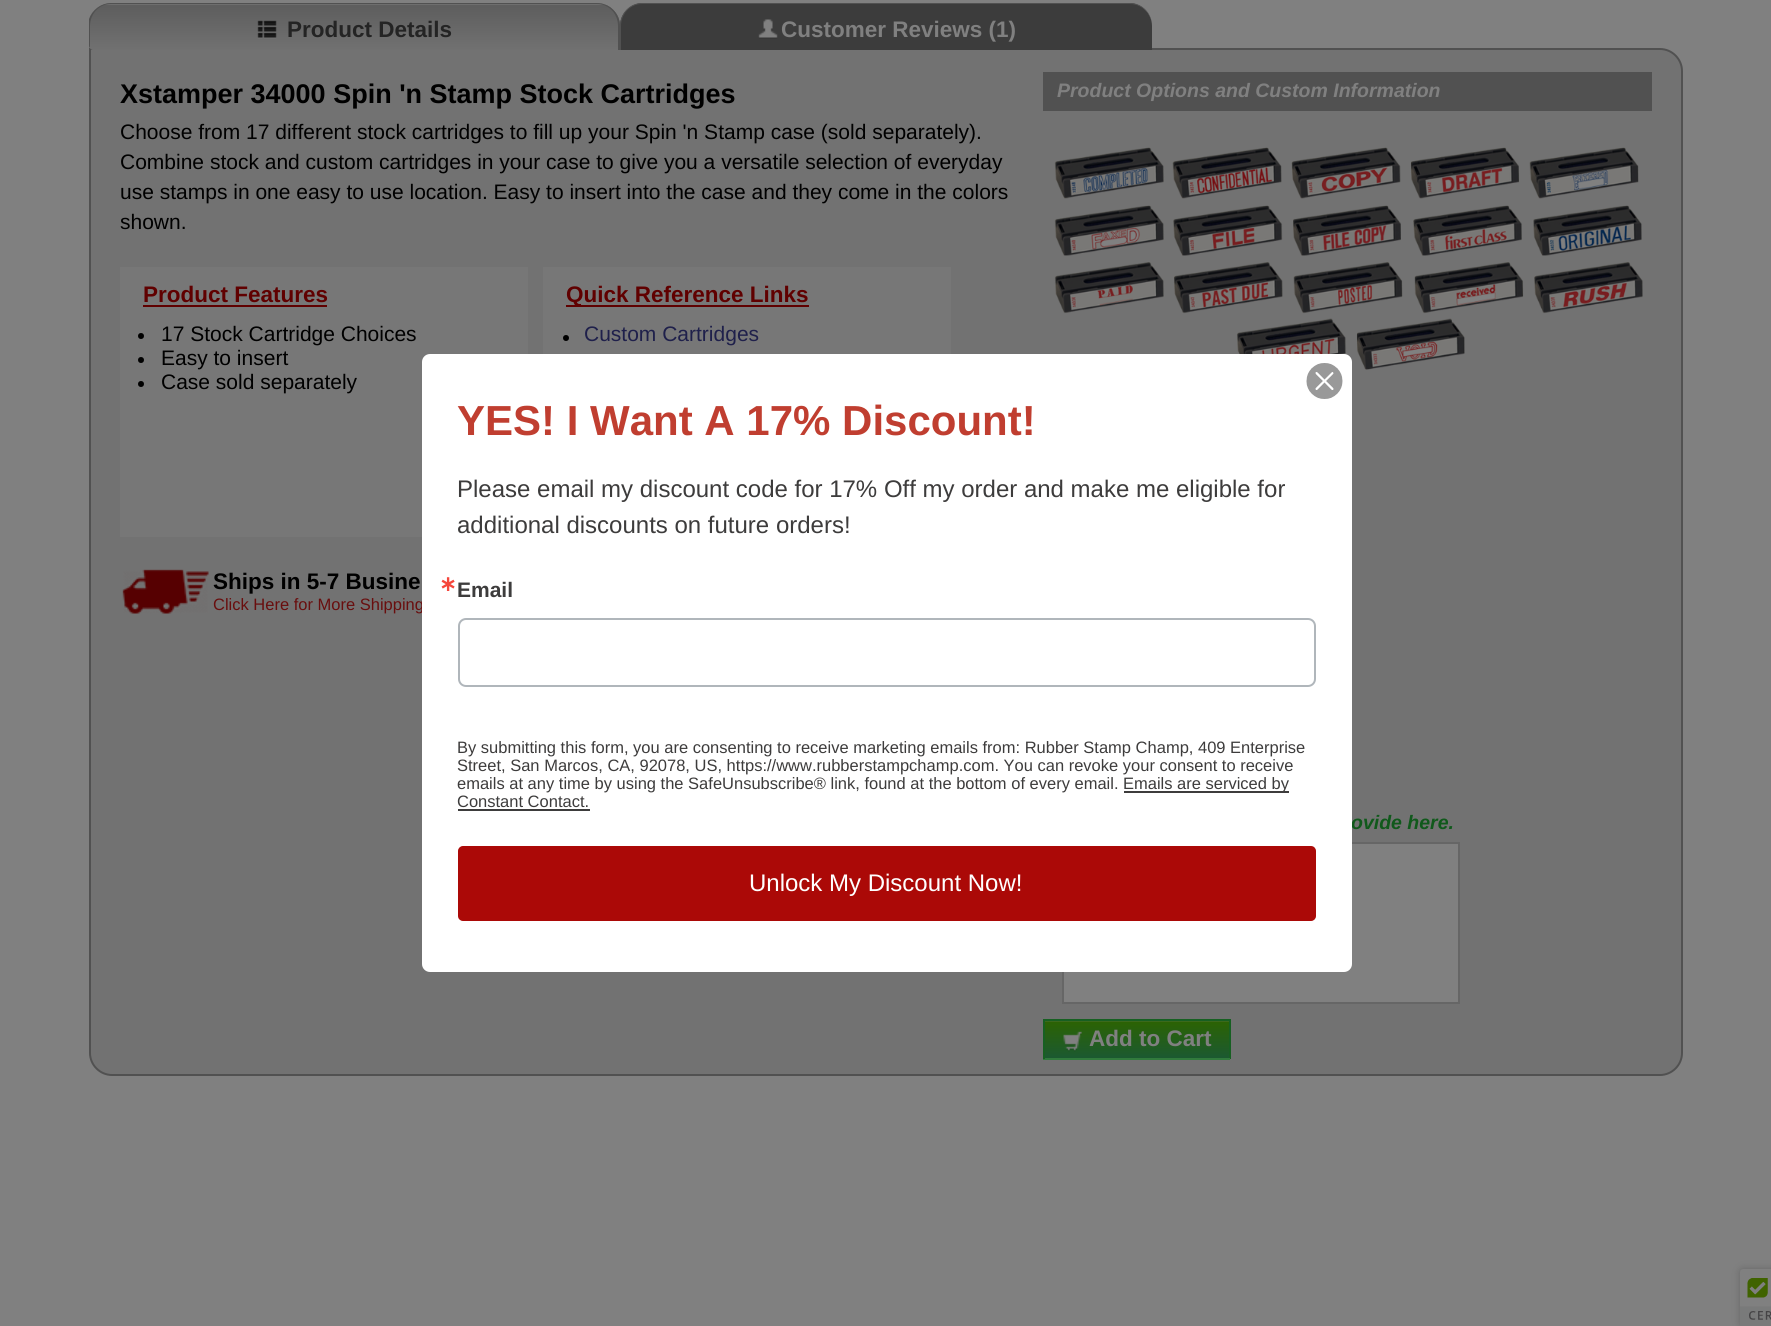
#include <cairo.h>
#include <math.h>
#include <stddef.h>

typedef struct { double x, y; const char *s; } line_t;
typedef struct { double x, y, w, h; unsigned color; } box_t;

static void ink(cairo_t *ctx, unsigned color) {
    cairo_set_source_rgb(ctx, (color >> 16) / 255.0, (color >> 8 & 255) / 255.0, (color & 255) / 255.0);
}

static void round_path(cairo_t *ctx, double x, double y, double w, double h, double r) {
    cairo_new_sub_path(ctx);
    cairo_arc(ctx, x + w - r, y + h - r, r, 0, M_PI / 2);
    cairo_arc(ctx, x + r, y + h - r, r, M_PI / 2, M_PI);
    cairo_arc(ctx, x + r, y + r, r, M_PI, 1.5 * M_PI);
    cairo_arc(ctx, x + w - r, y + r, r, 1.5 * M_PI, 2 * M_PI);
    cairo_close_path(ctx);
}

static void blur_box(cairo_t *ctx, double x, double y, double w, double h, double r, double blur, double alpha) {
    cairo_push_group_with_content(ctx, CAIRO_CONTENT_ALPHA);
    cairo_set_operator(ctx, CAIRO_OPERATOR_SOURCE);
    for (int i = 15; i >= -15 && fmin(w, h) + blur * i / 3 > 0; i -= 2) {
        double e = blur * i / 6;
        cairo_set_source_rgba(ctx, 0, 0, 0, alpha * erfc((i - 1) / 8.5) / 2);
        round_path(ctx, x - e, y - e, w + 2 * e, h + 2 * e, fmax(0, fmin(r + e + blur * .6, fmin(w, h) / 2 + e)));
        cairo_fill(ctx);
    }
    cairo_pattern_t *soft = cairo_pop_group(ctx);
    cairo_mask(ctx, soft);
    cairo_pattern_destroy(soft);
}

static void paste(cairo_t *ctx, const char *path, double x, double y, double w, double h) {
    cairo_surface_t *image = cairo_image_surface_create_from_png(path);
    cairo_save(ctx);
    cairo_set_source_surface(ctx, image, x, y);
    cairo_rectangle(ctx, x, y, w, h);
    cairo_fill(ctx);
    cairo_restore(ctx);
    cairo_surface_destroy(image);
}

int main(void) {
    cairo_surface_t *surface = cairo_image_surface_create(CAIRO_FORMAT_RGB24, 1771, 1326);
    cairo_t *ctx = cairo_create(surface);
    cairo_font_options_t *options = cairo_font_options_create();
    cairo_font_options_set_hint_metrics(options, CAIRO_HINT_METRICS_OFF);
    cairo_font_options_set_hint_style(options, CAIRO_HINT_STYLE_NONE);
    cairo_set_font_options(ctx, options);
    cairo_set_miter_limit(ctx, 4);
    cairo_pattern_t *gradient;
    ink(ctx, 0x808080);
    cairo_paint(ctx);
    ink(ctx, 0x727272);
    cairo_new_path(ctx);
    cairo_move_to(ctx, 90, 49);
    cairo_line_to(ctx, 1660, 49);
    cairo_curve_to(ctx, 1672, 49, 1682, 59, 1682, 71);
    cairo_line_to(ctx, 1682, 1053);
    cairo_curve_to(ctx, 1682, 1065, 1672, 1075, 1660, 1075);
    cairo_line_to(ctx, 112, 1075);
    cairo_curve_to(ctx, 100, 1075, 90, 1065, 90, 1053);
    cairo_close_path(ctx);
    cairo_fill_preserve(ctx);
    ink(ctx, 0x515151);
    cairo_stroke(ctx);
    cairo_save(ctx);
    round_path(ctx, 89, 3, 1594, 47, 5);
    cairo_clip(ctx);
    ink(ctx, 0x6E6E6E);
    cairo_new_path(ctx);
    cairo_move_to(ctx, 112, 3);
    cairo_line_to(ctx, 597, 3);
    cairo_curve_to(ctx, 609.5, 3, 620, 13.5, 620, 26);
    cairo_line_to(ctx, 620, 50);
    cairo_line_to(ctx, 94, 50);
    cairo_curve_to(ctx, 91, 50, 89, 48, 89, 45);
    cairo_line_to(ctx, 89, 26);
    cairo_curve_to(ctx, 89, 13.5, 99.5, 3, 112, 3);
    cairo_close_path(ctx);
    cairo_fill(ctx);
    cairo_restore(ctx);
    cairo_save(ctx);
    round_path(ctx, 89, 3, 1594, 47, 5);
    cairo_clip(ctx);
    cairo_new_path(ctx);
    cairo_move_to(ctx, 112, 3);
    cairo_line_to(ctx, 597, 3);
    cairo_curve_to(ctx, 609.5, 3, 620, 13.5, 620, 26);
    cairo_line_to(ctx, 620, 50);
    cairo_line_to(ctx, 89, 50);
    cairo_line_to(ctx, 89, 26);
    cairo_curve_to(ctx, 89, 13.5, 99.5, 3, 112, 3);
    cairo_close_path(ctx);
    cairo_clip(ctx);
    gradient = cairo_pattern_create_linear(354, 4.5, 354, 50);
    cairo_pattern_add_color_stop_rgba(gradient, 0, 0.365, 0.365, 0.365, 1);
    cairo_pattern_add_color_stop_rgba(gradient, 1, 0.443, 0.443, 0.443, 1);
    cairo_set_source(ctx, gradient);
    cairo_pattern_destroy(gradient);
    cairo_new_path(ctx);
    cairo_move_to(ctx, 89, 5);
    cairo_line_to(ctx, 620, 5);
    cairo_line_to(ctx, 620, 50);
    cairo_line_to(ctx, 94, 50);
    cairo_curve_to(ctx, 91, 50, 89, 48, 89, 45);
    cairo_close_path(ctx);
    cairo_fill(ctx);
    cairo_restore(ctx);
    cairo_new_path(ctx);
    cairo_move_to(ctx, 111, 3);
    cairo_curve_to(ctx, 101, 3, 92, 10, 89, 19);
    cairo_line_to(ctx, 89, 45);
    cairo_curve_to(ctx, 89, 46, 89, 47, 90, 48);
    cairo_line_to(ctx, 90, 26);
    cairo_curve_to(ctx, 90, 14, 99, 4, 111, 4);
    cairo_line_to(ctx, 597, 4);
    cairo_curve_to(ctx, 609, 4, 618, 14, 618, 26);
    cairo_line_to(ctx, 618, 50);
    cairo_line_to(ctx, 620, 50);
    cairo_line_to(ctx, 620, 26);
    cairo_curve_to(ctx, 620, 13, 609, 3, 597, 3);
    cairo_close_path(ctx);
    cairo_fill(ctx);
    paste(ctx, "media/1.png", 257, 20, 20, 19);
    cairo_select_font_face(ctx, "Liberation Sans", CAIRO_FONT_SLANT_NORMAL, CAIRO_FONT_WEIGHT_BOLD);
    cairo_set_font_size(ctx, 22.5);
    ink(ctx, 0x242424);
    cairo_move_to(ctx, 287, 37);
    cairo_show_text(ctx, "Product Details");
    ink(ctx, 0x3C3C3C);
    cairo_new_path(ctx);
    cairo_move_to(ctx, 643, 3);
    cairo_line_to(ctx, 1129, 3);
    cairo_curve_to(ctx, 1141.5, 3, 1152, 13.5, 1152, 26);
    cairo_line_to(ctx, 1152, 50);
    cairo_line_to(ctx, 620, 50);
    cairo_line_to(ctx, 620, 26);
    cairo_curve_to(ctx, 620, 13.5, 630.5, 3, 643, 3);
    cairo_close_path(ctx);
    cairo_fill(ctx);
    ink(ctx, 0x515151);
    cairo_set_fill_rule(ctx, CAIRO_FILL_RULE_EVEN_ODD);
    cairo_new_path(ctx);
    cairo_move_to(ctx, 642, 3);
    cairo_line_to(ctx, 1130, 3);
    cairo_curve_to(ctx, 1142, 3, 1152, 13, 1152, 26);
    cairo_line_to(ctx, 1152, 50);
    cairo_line_to(ctx, 620, 50);
    cairo_line_to(ctx, 620, 26);
    cairo_curve_to(ctx, 620, 13, 630, 3, 642, 3);
    cairo_close_path(ctx);
    cairo_move_to(ctx, 642, 4);
    cairo_line_to(ctx, 1130, 4);
    cairo_curve_to(ctx, 1142, 4, 1152, 14, 1152, 26);
    cairo_line_to(ctx, 1152, 50);
    cairo_line_to(ctx, 621, 50);
    cairo_line_to(ctx, 621, 26);
    cairo_curve_to(ctx, 621, 14, 630, 4, 642, 4);
    cairo_close_path(ctx);
    cairo_fill(ctx);
    paste(ctx, "media/2.png", 758, 19, 20, 20);
    ink(ctx, 0x808080);
    cairo_move_to(ctx, 781, 37);
    cairo_show_text(ctx, "Customer Reviews (1)");
    cairo_set_font_size(ctx, 27);
    ink(ctx, 0x000000);
    cairo_move_to(ctx, 120, 103);
    cairo_show_text(ctx, "Xstamper 34000 Spin 'n Stamp Stock Cartridges");
    cairo_select_font_face(ctx, "Liberation Sans", CAIRO_FONT_SLANT_NORMAL, CAIRO_FONT_WEIGHT_NORMAL);
    cairo_set_font_size(ctx, 21);
    {
        static const line_t items[] = {
            {120, 139, "Choose from 17 different stock cartridges to fill up your Spin 'n Stamp case (sold separately)."},
            {120, 169, "Combine stock and custom cartridges in your case to give you a versatile selection of everyday"},
            {120, 199, "use stamps in one easy to use location. Easy to insert into the case and they come in the colors"},
            {120, 229, "shown."},
        };
        for (size_t i = 0; i < sizeof items / sizeof *items; i++) {
            cairo_move_to(ctx, items[i].x, items[i].y);
            cairo_show_text(ctx, items[i].s);
        }
    }
    ink(ctx, 0x777777);
    cairo_rectangle(ctx, 120, 267, 408, 270);
    cairo_fill(ctx);
    cairo_select_font_face(ctx, "Liberation Sans", CAIRO_FONT_SLANT_NORMAL, CAIRO_FONT_WEIGHT_BOLD);
    cairo_set_font_size(ctx, 22.5);
    ink(ctx, 0x600000);
    cairo_move_to(ctx, 143, 302);
    cairo_show_text(ctx, "Product Features");
    cairo_rectangle(ctx, 143, 305, 184, 2);
    cairo_fill(ctx);
    ink(ctx, 0x000000);
    cairo_arc(ctx, 141, 336, 3, 0, 2 * M_PI);
    cairo_fill(ctx);
    cairo_select_font_face(ctx, "Liberation Sans", CAIRO_FONT_SLANT_NORMAL, CAIRO_FONT_WEIGHT_NORMAL);
    cairo_set_font_size(ctx, 21);
    cairo_move_to(ctx, 161, 341);
    cairo_show_text(ctx, "17 Stock Cartridge Choices");
    cairo_new_path(ctx);
    cairo_arc(ctx, 141, 360, 3, 0, 2 * M_PI);
    cairo_fill(ctx);
    cairo_move_to(ctx, 161, 365);
    cairo_show_text(ctx, "Easy to insert");
    cairo_new_path(ctx);
    cairo_arc(ctx, 141, 384, 3, 0, 2 * M_PI);
    cairo_fill(ctx);
    cairo_move_to(ctx, 161, 389);
    cairo_show_text(ctx, "Case sold separately");
    ink(ctx, 0x777777);
    cairo_rectangle(ctx, 543, 267, 408, 87);
    cairo_fill(ctx);
    ink(ctx, 0x600000);
    cairo_rectangle(ctx, 566, 305, 243, 2);
    cairo_fill(ctx);
    cairo_select_font_face(ctx, "Liberation Sans", CAIRO_FONT_SLANT_NORMAL, CAIRO_FONT_WEIGHT_BOLD);
    cairo_set_font_size(ctx, 22.5);
    cairo_move_to(ctx, 566, 302);
    cairo_show_text(ctx, "Quick Reference Links");
    ink(ctx, 0x000000);
    cairo_new_path(ctx);
    cairo_arc(ctx, 566, 338, 3, 0, 2 * M_PI);
    cairo_fill(ctx);
    cairo_select_font_face(ctx, "Liberation Sans", CAIRO_FONT_SLANT_NORMAL, CAIRO_FONT_WEIGHT_NORMAL);
    cairo_set_font_size(ctx, 21);
    ink(ctx, 0x1F204B);
    cairo_move_to(ctx, 584, 341);
    cairo_show_text(ctx, "Custom Cartridges");
    paste(ctx, "media/3.png", 122, 569, 87, 45);
    cairo_select_font_face(ctx, "Liberation Sans", CAIRO_FONT_SLANT_NORMAL, CAIRO_FONT_WEIGHT_BOLD);
    cairo_set_font_size(ctx, 22.5);
    ink(ctx, 0x000000);
    cairo_move_to(ctx, 213, 589);
    cairo_show_text(ctx, "Ships in 5-7 Busine");
    cairo_select_font_face(ctx, "Liberation Sans", CAIRO_FONT_SLANT_NORMAL, CAIRO_FONT_WEIGHT_NORMAL);
    cairo_set_font_size(ctx, 16.5);
    ink(ctx, 0x690E0E);
    cairo_move_to(ctx, 213, 610);
    cairo_show_text(ctx, "Click Here for More Shipping");
    ink(ctx, 0x515151);
    cairo_rectangle(ctx, 1043, 72, 609, 39);
    cairo_fill(ctx);
    cairo_select_font_face(ctx, "Liberation Sans", CAIRO_FONT_SLANT_ITALIC, CAIRO_FONT_WEIGHT_BOLD);
    cairo_set_font_size(ctx, 19.5);
    ink(ctx, 0x808080);
    cairo_move_to(ctx, 1057, 97);
    cairo_show_text(ctx, "Product Options and Custom Information");
    paste(ctx, "media/4.png", 1054, 147, 589, 223);
    ink(ctx, 0x10591B);
    cairo_move_to(ctx, 1351, 829);
    cairo_show_text(ctx, "ovide here.");
    ink(ctx, 0x808080);
    cairo_rectangle(ctx, 1063, 843, 396, 160);
    cairo_fill_preserve(ctx);
    ink(ctx, 0x666666);
    cairo_stroke(ctx);
    gradient = cairo_pattern_create_linear(1136, 1020, 1136, 1058);
    cairo_pattern_add_color_stop_rgba(gradient, 0, 0.173, 0.388, 0.004, 1);
    cairo_pattern_add_color_stop_rgba(gradient, 1, 0.106, 0.349, 0.192, 1);
    cairo_set_source(ctx, gradient);
    cairo_pattern_destroy(gradient);
    cairo_rectangle(ctx, 1045, 1022, 184, 36);
    cairo_fill(ctx);
    gradient = cairo_pattern_create_linear(1136, 1020, 1136, 1058);
    cairo_pattern_add_color_stop_rgba(gradient, 0, 0.239, 0.412, 0.102, 1);
    cairo_pattern_add_color_stop_rgba(gradient, 1, 0.184, 0.38, 0.255, 1);
    cairo_set_source(ctx, gradient);
    cairo_pattern_destroy(gradient);
    cairo_rectangle(ctx, 1044, 1021, 185, 1);
    cairo_fill(ctx);
    {
        static const box_t items[] = {
            {1043, 1019, 187, 2, 0x176022},
            {1229, 1019, 2, 40, 0x176022},
            {1043, 1058, 187, 2, 0x317A3C},
            {1043, 1019, 2, 40, 0x176022},
        };
        for (size_t i = 0; i < sizeof items / sizeof *items; i++) {
            ink(ctx, items[i].color);
            cairo_rectangle(ctx, items[i].x, items[i].y, items[i].w, items[i].h);
            cairo_fill(ctx);
        }
    }
    paste(ctx, "media/5.png", 1063, 1031, 19, 21);
    cairo_select_font_face(ctx, "Liberation Sans", CAIRO_FONT_SLANT_NORMAL, CAIRO_FONT_WEIGHT_BOLD);
    cairo_set_font_size(ctx, 22.5);
    ink(ctx, 0x808080);
    cairo_move_to(ctx, 1089, 1046);
    cairo_show_text(ctx, "Add to Cart");
    ink(ctx, 0xFFFFFF);
    round_path(ctx, 422, 354, 930, 618, 8);
    cairo_fill(ctx);
    paste(ctx, "media/6.png", 1306, 363, 37, 36);
    cairo_set_font_size(ctx, 42);
    ink(ctx, 0xC03E30);
    cairo_move_to(ctx, 457, 435);
    cairo_show_text(ctx, "YES! I Want A 17% Discount!");
    cairo_select_font_face(ctx, "Liberation Sans", CAIRO_FONT_SLANT_NORMAL, CAIRO_FONT_WEIGHT_NORMAL);
    cairo_set_font_size(ctx, 24);
    ink(ctx, 0x3D3C3C);
    cairo_move_to(ctx, 457, 497);
    cairo_show_text(ctx, "Please email my discount code for 17% Off my order and make me eligible for");
    cairo_move_to(ctx, 457, 533);
    cairo_show_text(ctx, "additional discounts on future orders!");
    cairo_select_font_face(ctx, "DejaVu Sans", CAIRO_FONT_SLANT_NORMAL, CAIRO_FONT_WEIGHT_BOLD);
    cairo_set_font_size(ctx, 21);
    ink(ctx, 0xF5463B);
    cairo_move_to(ctx, 439, 591);
    cairo_show_text(ctx, "∗");
    cairo_select_font_face(ctx, "Liberation Sans", CAIRO_FONT_SLANT_NORMAL, CAIRO_FONT_WEIGHT_BOLD);
    ink(ctx, 0x3D3C3C);
    cairo_move_to(ctx, 457, 597);
    cairo_show_text(ctx, "Email");
    round_path(ctx, 459, 619, 856, 67, 7);
    ink(ctx, 0xB0B6BB);
    cairo_stroke(ctx);
    cairo_select_font_face(ctx, "Liberation Sans", CAIRO_FONT_SLANT_NORMAL, CAIRO_FONT_WEIGHT_NORMAL);
    cairo_set_font_size(ctx, 16.5);
    ink(ctx, 0x3D3C3C);
    {
        static const line_t items[] = {
            {457, 753, "By submitting this form, you are consenting to receive marketing emails from: Rubber Stamp Champ, 409 Enterprise"},
            {457, 771, "Street, San Marcos, CA, 92078, US, https://www.rubberstampchamp.com. You can revoke your consent to receive"},
            {457, 789, "emails at any time by using the SafeUnsubscribe® link, found at the bottom of every email."},
        };
        for (size_t i = 0; i < sizeof items / sizeof *items; i++) {
            cairo_move_to(ctx, items[i].x, items[i].y);
            cairo_show_text(ctx, items[i].s);
        }
    }
    cairo_rectangle(ctx, 1124, 791, 165, 2);
    cairo_fill(ctx);
    cairo_move_to(ctx, 1123, 789);
    cairo_show_text(ctx, "Emails are serviced by");
    cairo_move_to(ctx, 457, 807);
    cairo_show_text(ctx, "Constant Contact.");
    cairo_rectangle(ctx, 458, 809, 132, 2);
    cairo_fill(ctx);
    ink(ctx, 0xAB0907);
    round_path(ctx, 459, 847, 856, 73, 4);
    cairo_fill_preserve(ctx);
    cairo_stroke(ctx);
    cairo_set_font_size(ctx, 24);
    ink(ctx, 0xFFFFFF);
    cairo_move_to(ctx, 749, 891);
    cairo_show_text(ctx, "Unlock My Discount Now!");
    ink(ctx, 0x000000);
    blur_box(ctx, 1740, 1269, 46, 57, 3, 4, 0.2);
    ink(ctx, 0x808080);
    cairo_new_path(ctx);
    cairo_move_to(ctx, 1743, 1269);
    cairo_line_to(ctx, 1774, 1269);
    cairo_line_to(ctx, 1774, 1326);
    cairo_line_to(ctx, 1740, 1326);
    cairo_line_to(ctx, 1740, 1272);
    cairo_curve_to(ctx, 1740, 1270.5, 1741.5, 1269, 1743, 1269);
    cairo_close_path(ctx);
    cairo_fill(ctx);
    paste(ctx, "media/7.png", 1740, 1278, 31, 48);
    cairo_surface_write_to_png(surface, "image.png");
    cairo_font_options_destroy(options);
    cairo_destroy(ctx);
    cairo_surface_destroy(surface);
    return 0;
}
